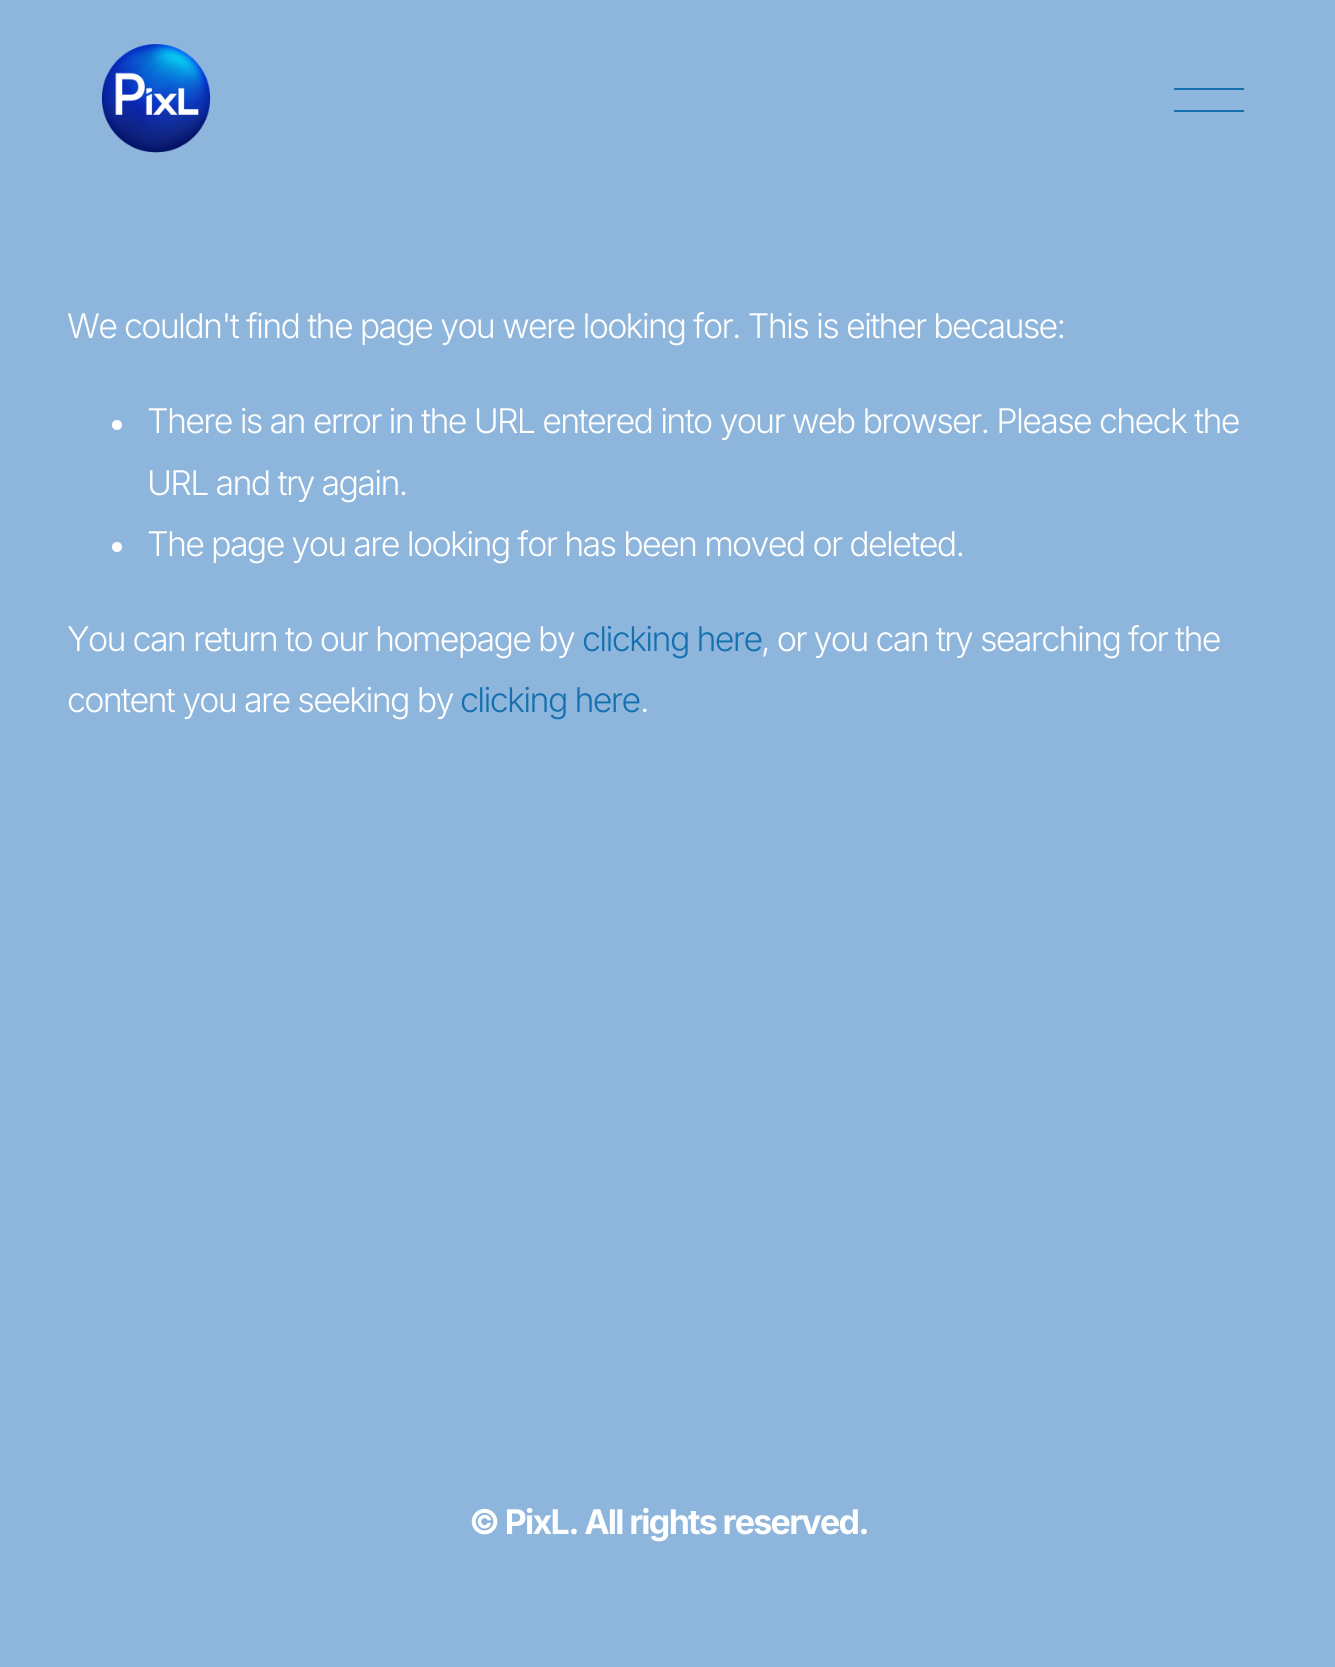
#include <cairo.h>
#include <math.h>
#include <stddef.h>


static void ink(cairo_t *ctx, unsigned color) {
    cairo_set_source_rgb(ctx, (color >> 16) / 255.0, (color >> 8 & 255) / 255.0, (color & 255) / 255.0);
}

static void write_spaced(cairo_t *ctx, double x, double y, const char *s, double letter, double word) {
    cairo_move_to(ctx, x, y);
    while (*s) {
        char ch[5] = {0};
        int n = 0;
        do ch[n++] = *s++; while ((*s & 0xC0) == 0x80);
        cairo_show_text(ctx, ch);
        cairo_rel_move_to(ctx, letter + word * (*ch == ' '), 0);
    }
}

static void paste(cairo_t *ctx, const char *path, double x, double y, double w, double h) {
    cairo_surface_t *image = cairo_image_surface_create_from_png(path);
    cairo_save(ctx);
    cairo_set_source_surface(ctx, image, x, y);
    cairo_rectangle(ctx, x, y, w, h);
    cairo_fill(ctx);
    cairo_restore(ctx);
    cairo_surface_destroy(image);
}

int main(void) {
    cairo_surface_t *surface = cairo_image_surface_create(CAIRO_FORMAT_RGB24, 1335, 1667);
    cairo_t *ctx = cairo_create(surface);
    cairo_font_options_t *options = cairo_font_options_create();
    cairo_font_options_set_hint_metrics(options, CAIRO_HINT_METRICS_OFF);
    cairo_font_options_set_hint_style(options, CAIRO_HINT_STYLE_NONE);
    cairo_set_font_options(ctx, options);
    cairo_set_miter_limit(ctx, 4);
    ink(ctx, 0x8EB6DC);
    cairo_paint(ctx);
    paste(ctx, "media/1.png", 101, 44, 110, 109);
    ink(ctx, 0x1470AF);
    cairo_rectangle(ctx, 1174, 88, 70, 2);
    cairo_fill(ctx);
    cairo_rectangle(ctx, 1174, 110, 70, 2);
    cairo_fill(ctx);
    cairo_select_font_face(ctx, "Inter Light", CAIRO_FONT_SLANT_NORMAL, CAIRO_FONT_WEIGHT_NORMAL);
    cairo_set_font_size(ctx, 34);
    ink(ctx, 0xFFFFFF);
    write_spaced(ctx, 67, 338, "We couldn't find the page you were looking for. This is either because:", -1.7, 0);
    cairo_new_path(ctx);
    cairo_arc(ctx, 117, 425, 5, 0, 2 * M_PI);
    cairo_fill(ctx);
    write_spaced(ctx, 147, 433, "There is an error in the URL entered into your web browser. Please check the", -1.7, 0);
    write_spaced(ctx, 147, 495, "URL and try again.", -1.7, 0);
    cairo_new_path(ctx);
    cairo_arc(ctx, 117, 547, 5, 0, 2 * M_PI);
    cairo_fill(ctx);
    write_spaced(ctx, 147, 556, "The page you are looking for has been moved or deleted.", -1.7, 0);
    write_spaced(ctx, 67, 651, "You can return to our homepage by", -1.7, 0);
    ink(ctx, 0x1470AF);
    write_spaced(ctx, 582, 651, "clicking here", -1.7, 0);
    ink(ctx, 0xFFFFFF);
    write_spaced(ctx, 761, 651, ", or you can try searching for the", -1.7, 0);
    write_spaced(ctx, 67, 712, "content you are seeking by", -1.7, 0);
    ink(ctx, 0x1470AF);
    write_spaced(ctx, 460, 712, "clicking here", -1.7, 0);
    ink(ctx, 0xFFFFFF);
    write_spaced(ctx, 640, 712, ".", -1.7, 0);
    cairo_select_font_face(ctx, "Inter", CAIRO_FONT_SLANT_NORMAL, CAIRO_FONT_WEIGHT_BOLD);
    write_spaced(ctx, 469, 1534, "© PixL. All rights reserved.", -1.7, 0);
    cairo_surface_write_to_png(surface, "image.png");
    cairo_font_options_destroy(options);
    cairo_destroy(ctx);
    cairo_surface_destroy(surface);
    return 0;
}
